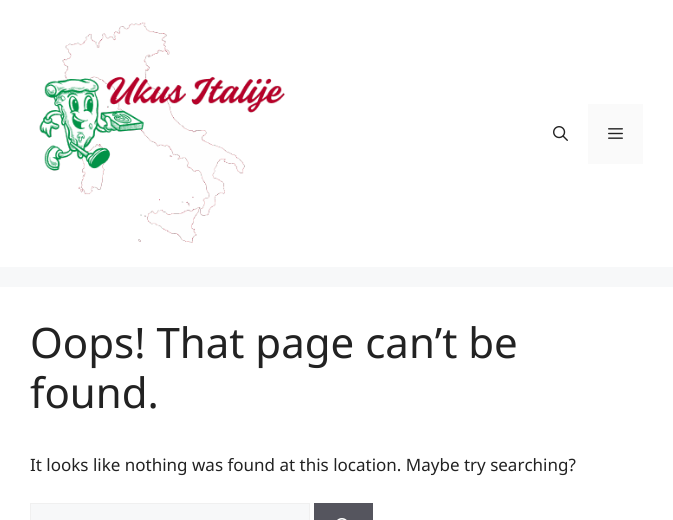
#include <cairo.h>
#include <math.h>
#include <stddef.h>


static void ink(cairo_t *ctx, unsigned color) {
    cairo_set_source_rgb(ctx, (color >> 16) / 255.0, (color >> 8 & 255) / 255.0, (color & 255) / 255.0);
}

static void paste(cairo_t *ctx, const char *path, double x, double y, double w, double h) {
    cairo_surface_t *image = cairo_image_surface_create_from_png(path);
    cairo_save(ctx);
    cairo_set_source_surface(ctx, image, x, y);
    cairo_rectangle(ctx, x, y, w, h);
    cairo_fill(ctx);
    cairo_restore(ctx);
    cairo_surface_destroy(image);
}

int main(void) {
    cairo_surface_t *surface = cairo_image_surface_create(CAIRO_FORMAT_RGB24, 673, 520);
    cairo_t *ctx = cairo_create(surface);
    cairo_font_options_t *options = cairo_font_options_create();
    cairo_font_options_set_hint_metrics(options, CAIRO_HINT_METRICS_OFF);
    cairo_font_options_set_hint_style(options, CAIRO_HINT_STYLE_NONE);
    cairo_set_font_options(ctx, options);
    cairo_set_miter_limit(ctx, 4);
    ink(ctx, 0xF7F8F9);
    cairo_paint(ctx);
    ink(ctx, 0xFFFFFF);
    cairo_rectangle(ctx, 0, 0, 673, 267);
    cairo_fill(ctx);
    paste(ctx, "media/1.png", 39, 22, 246, 221);
    paste(ctx, "media/2.png", 553, 126, 15, 15);
    ink(ctx, 0xFAFAFA);
    cairo_rectangle(ctx, 588, 104, 55, 60);
    cairo_fill(ctx);
    paste(ctx, "media/3.png", 608, 128, 15, 11);
    ink(ctx, 0xFFFFFF);
    cairo_rectangle(ctx, 0, 287, 673, 233);
    cairo_fill(ctx);
    cairo_select_font_face(ctx, "Noto Sans", CAIRO_FONT_SLANT_NORMAL, CAIRO_FONT_WEIGHT_NORMAL);
    cairo_set_font_size(ctx, 42);
    ink(ctx, 0x222222);
    cairo_move_to(ctx, 30, 358);
    cairo_show_text(ctx, "Oops! That page can’t be");
    cairo_move_to(ctx, 30, 408);
    cairo_show_text(ctx, "found.");
    cairo_set_font_size(ctx, 17);
    cairo_move_to(ctx, 30, 471);
    cairo_show_text(ctx, "It looks like nothing was found at this location. Maybe try searching?");
    ink(ctx, 0xF7F8F9);
    cairo_rectangle(ctx, 30.5, 503.5, 279, 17);
    cairo_fill_preserve(ctx);
    ink(ctx, 0xF0F0F0);
    cairo_set_line_width(ctx, 1);
    cairo_stroke(ctx);
    ink(ctx, 0x55555E);
    cairo_rectangle(ctx, 314, 503, 59, 17);
    cairo_fill(ctx);
    paste(ctx, "media/4.png", 337, 518, 10, 2);
    cairo_surface_write_to_png(surface, "image.png");
    cairo_font_options_destroy(options);
    cairo_destroy(ctx);
    cairo_surface_destroy(surface);
    return 0;
}
